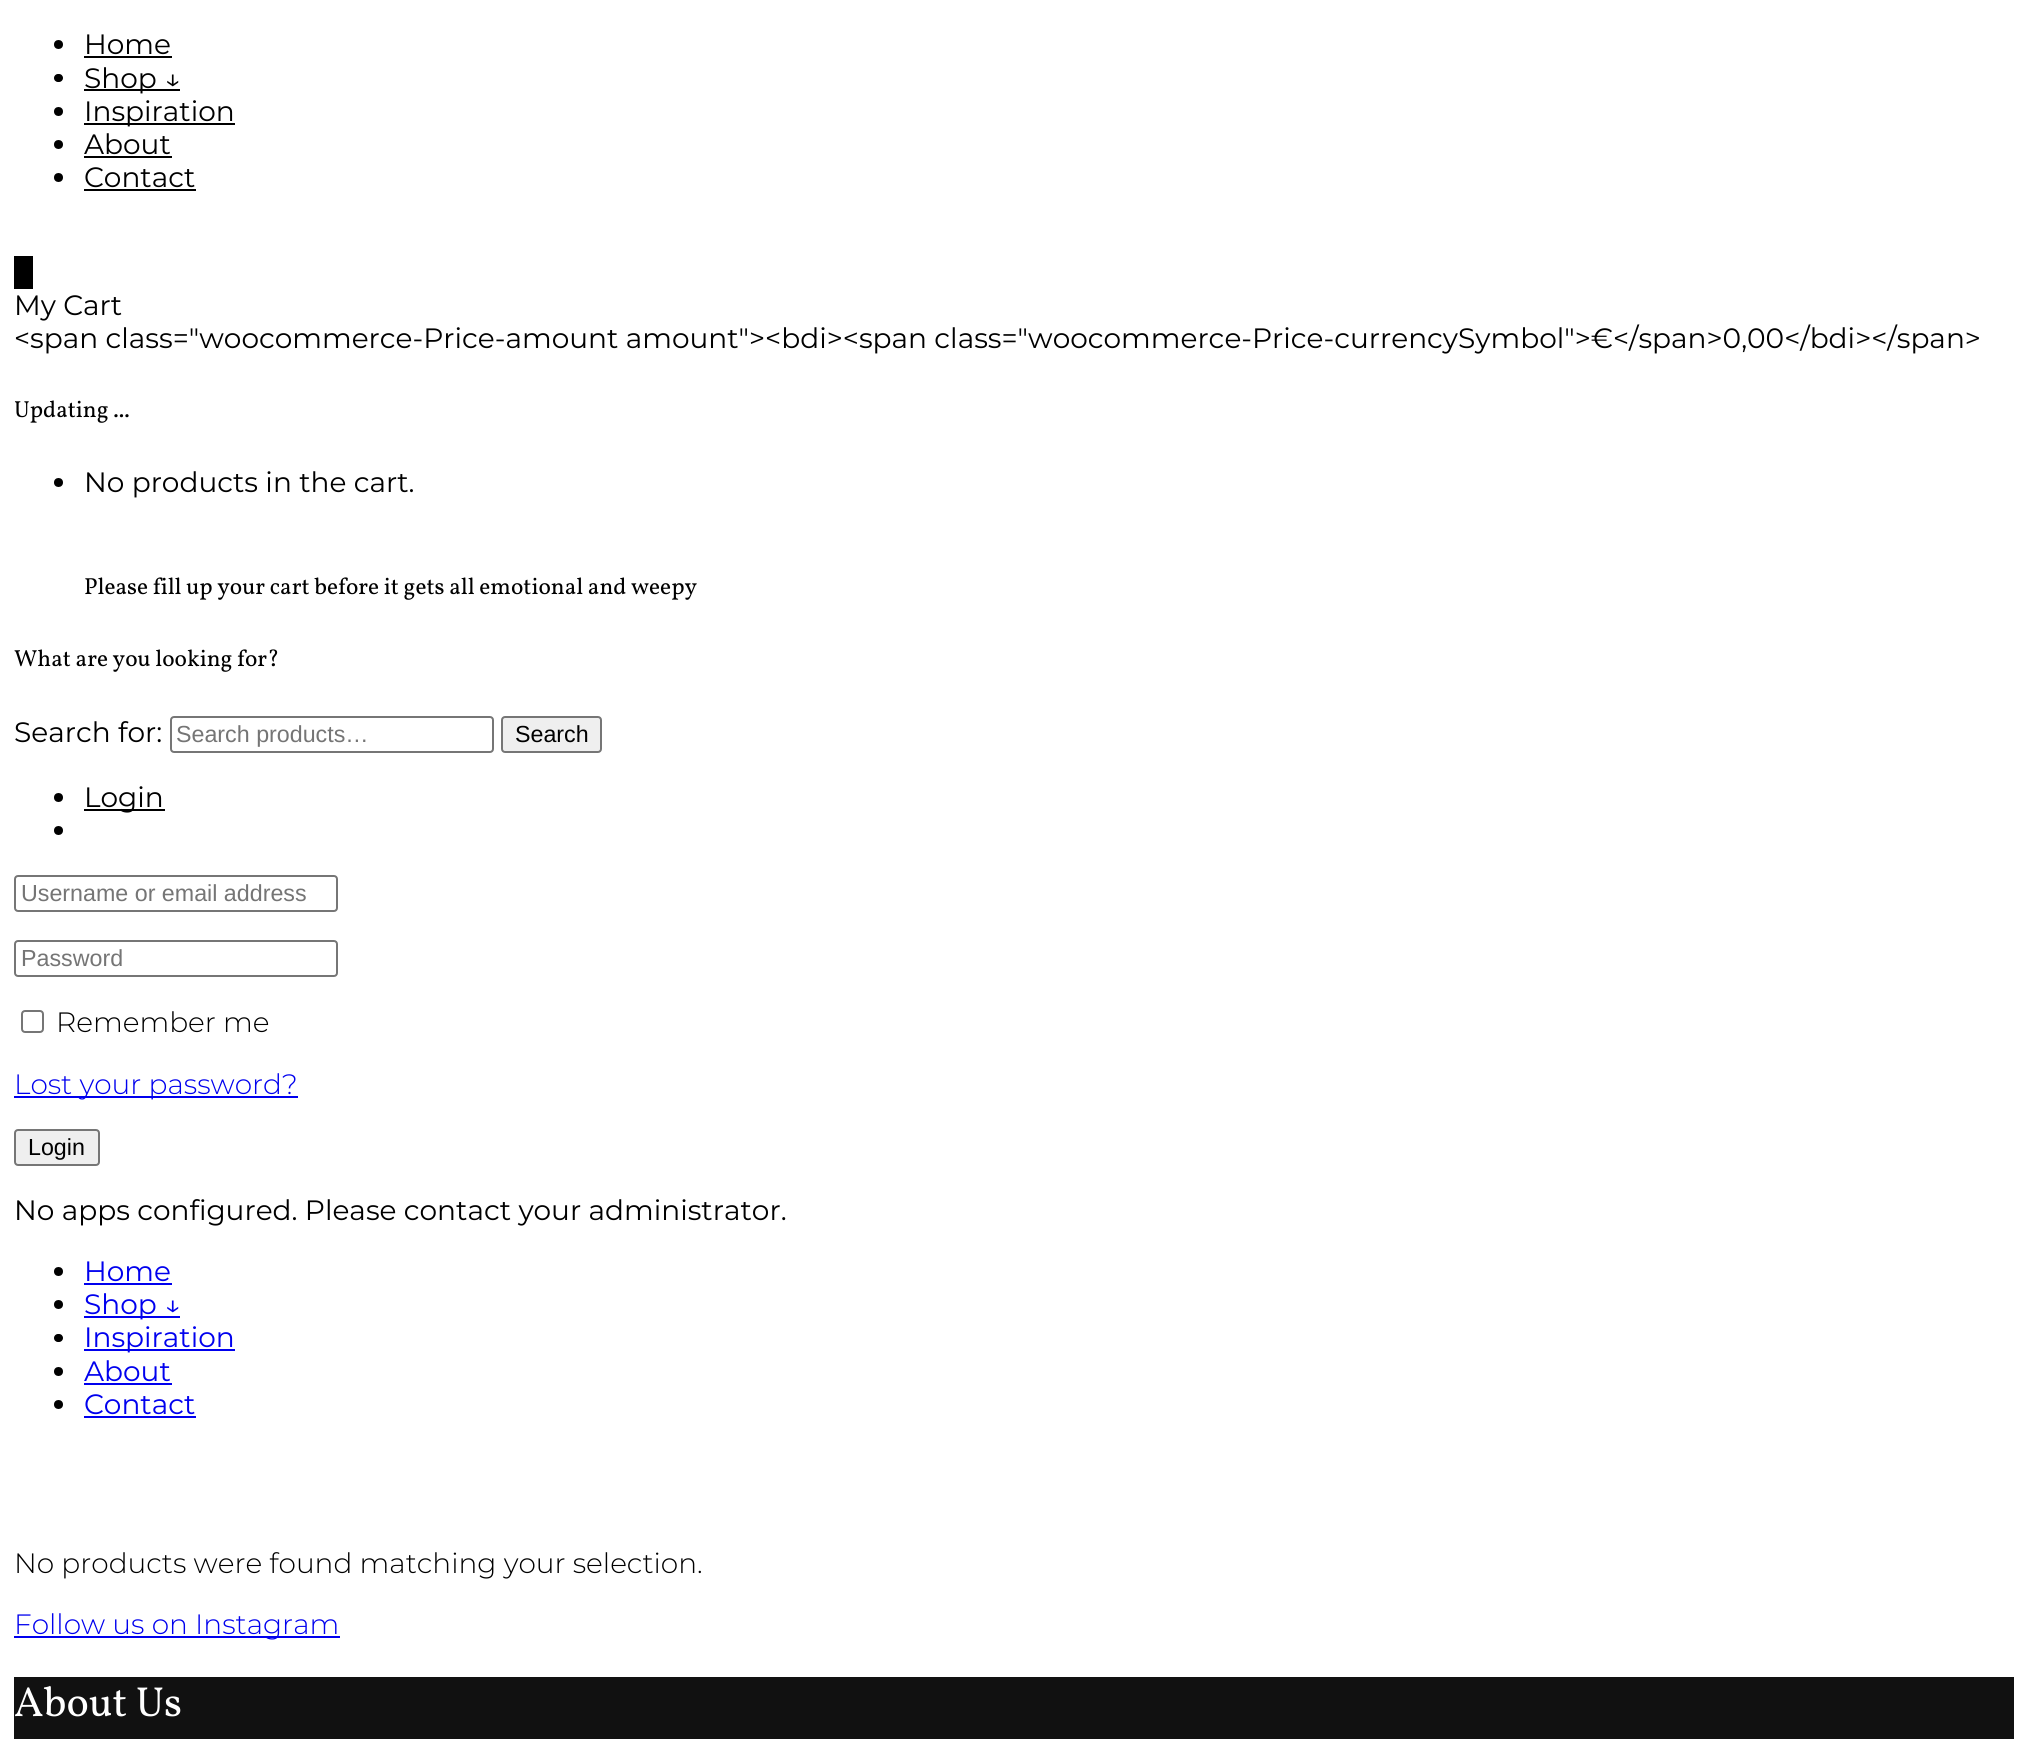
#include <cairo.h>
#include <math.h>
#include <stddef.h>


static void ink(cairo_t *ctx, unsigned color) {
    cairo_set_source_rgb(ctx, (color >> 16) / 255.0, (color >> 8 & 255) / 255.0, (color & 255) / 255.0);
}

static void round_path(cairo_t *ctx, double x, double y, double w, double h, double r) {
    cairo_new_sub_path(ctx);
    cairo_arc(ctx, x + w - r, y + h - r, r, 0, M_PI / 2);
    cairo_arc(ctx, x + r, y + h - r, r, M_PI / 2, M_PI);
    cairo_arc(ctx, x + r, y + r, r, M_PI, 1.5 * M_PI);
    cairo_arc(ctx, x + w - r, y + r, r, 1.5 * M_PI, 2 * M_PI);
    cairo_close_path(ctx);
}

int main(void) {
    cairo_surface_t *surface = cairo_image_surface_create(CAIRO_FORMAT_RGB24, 2027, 1739);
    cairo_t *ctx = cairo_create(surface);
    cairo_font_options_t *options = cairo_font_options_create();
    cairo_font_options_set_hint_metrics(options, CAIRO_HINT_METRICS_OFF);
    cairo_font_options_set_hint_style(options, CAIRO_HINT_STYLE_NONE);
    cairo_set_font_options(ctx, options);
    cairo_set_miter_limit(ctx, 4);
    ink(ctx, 0xFFFFFF);
    cairo_paint(ctx);
    ink(ctx, 0x000000);
    cairo_arc(ctx, 58.5, 44.5, 4.5, 0, 2 * M_PI);
    cairo_fill(ctx);
    cairo_select_font_face(ctx, "Montserrat Thin", CAIRO_FONT_SLANT_NORMAL, CAIRO_FONT_WEIGHT_NORMAL);
    cairo_set_font_size(ctx, 28);
    cairo_move_to(ctx, 84, 54);
    cairo_show_text(ctx, "Home");
    cairo_rectangle(ctx, 84, 56, 88, 2);
    cairo_fill(ctx);
    round_path(ctx, 54, 74, 9, 8, 4);
    cairo_fill(ctx);
    cairo_rectangle(ctx, 84, 89, 96, 2);
    cairo_fill(ctx);
    cairo_move_to(ctx, 84, 88);
    cairo_show_text(ctx, "Shop ↓");
    cairo_new_path(ctx);
    cairo_arc(ctx, 58.5, 111.5, 4.5, 0, 2 * M_PI);
    cairo_fill(ctx);
    cairo_rectangle(ctx, 84, 123, 151, 2);
    cairo_fill(ctx);
    cairo_move_to(ctx, 84, 121);
    cairo_show_text(ctx, "Inspiration");
    cairo_new_path(ctx);
    cairo_arc(ctx, 58.5, 144.5, 4.5, 0, 2 * M_PI);
    cairo_fill(ctx);
    cairo_move_to(ctx, 84, 154);
    cairo_show_text(ctx, "About");
    cairo_rectangle(ctx, 84, 156, 88, 2);
    cairo_fill(ctx);
    cairo_arc(ctx, 58.5, 177.5, 4.5, 0, 2 * M_PI);
    cairo_fill(ctx);
    cairo_move_to(ctx, 84, 187);
    cairo_show_text(ctx, "Contact");
    cairo_rectangle(ctx, 84, 189, 112, 2);
    cairo_fill(ctx);
    cairo_rectangle(ctx, 14, 256, 19, 33);
    cairo_fill(ctx);
    cairo_move_to(ctx, 14, 315);
    cairo_show_text(ctx, "My Cart");
    cairo_move_to(ctx, 14, 348);
    cairo_show_text(ctx, "<span class=\"woocommerce-Price-amount amount\"><bdi><span class=\"woocommerce-Price-currencySymbol\">€</span>0,00</bdi></span>");
    cairo_select_font_face(ctx, "Vollkorn", CAIRO_FONT_SLANT_NORMAL, CAIRO_FONT_WEIGHT_NORMAL);
    cairo_set_font_size(ctx, 23.25);
    cairo_move_to(ctx, 14, 417);
    cairo_show_text(ctx, "Updating ...");
    cairo_new_path(ctx);
    cairo_arc(ctx, 58.5, 482.5, 4.5, 0, 2 * M_PI);
    cairo_fill(ctx);
    cairo_select_font_face(ctx, "Montserrat Thin", CAIRO_FONT_SLANT_NORMAL, CAIRO_FONT_WEIGHT_NORMAL);
    cairo_set_font_size(ctx, 28);
    cairo_move_to(ctx, 84, 492);
    cairo_show_text(ctx, "No products in the cart.");
    cairo_select_font_face(ctx, "Vollkorn", CAIRO_FONT_SLANT_NORMAL, CAIRO_FONT_WEIGHT_NORMAL);
    cairo_set_font_size(ctx, 23.25);
    cairo_move_to(ctx, 84, 594);
    cairo_show_text(ctx, "Please fill up your cart before it gets all emotional and weepy");
    cairo_move_to(ctx, 14, 666);
    cairo_show_text(ctx, "What are you looking for?");
    cairo_select_font_face(ctx, "Montserrat Thin", CAIRO_FONT_SLANT_NORMAL, CAIRO_FONT_WEIGHT_NORMAL);
    cairo_set_font_size(ctx, 28);
    cairo_move_to(ctx, 14, 742);
    cairo_show_text(ctx, "Search for:");
    round_path(ctx, 171, 717, 322, 35, 3);
    ink(ctx, 0x767676);
    cairo_stroke(ctx);
    cairo_select_font_face(ctx, "Liberation Sans", CAIRO_FONT_SLANT_NORMAL, CAIRO_FONT_WEIGHT_NORMAL);
    cairo_set_font_size(ctx, 23.25);
    ink(ctx, 0x757575);
    cairo_move_to(ctx, 176, 742);
    cairo_show_text(ctx, "Search products…");
    ink(ctx, 0xEFEFEF);
    round_path(ctx, 502, 717, 99, 35, 3);
    cairo_fill_preserve(ctx);
    ink(ctx, 0x767676);
    cairo_stroke(ctx);
    ink(ctx, 0x000000);
    cairo_move_to(ctx, 515, 742);
    cairo_show_text(ctx, "Search");
    cairo_new_path(ctx);
    cairo_arc(ctx, 58.5, 797.5, 4.5, 0, 2 * M_PI);
    cairo_fill(ctx);
    cairo_rectangle(ctx, 84, 809, 81, 2);
    cairo_fill(ctx);
    cairo_select_font_face(ctx, "Montserrat Thin", CAIRO_FONT_SLANT_NORMAL, CAIRO_FONT_WEIGHT_NORMAL);
    cairo_set_font_size(ctx, 28);
    cairo_move_to(ctx, 84, 807);
    cairo_show_text(ctx, "Login");
    cairo_new_path(ctx);
    cairo_arc(ctx, 58.5, 830.5, 4.5, 0, 2 * M_PI);
    cairo_fill(ctx);
    round_path(ctx, 15, 876, 322, 35, 3);
    ink(ctx, 0x767676);
    cairo_stroke(ctx);
    cairo_select_font_face(ctx, "Liberation Sans", CAIRO_FONT_SLANT_NORMAL, CAIRO_FONT_WEIGHT_NORMAL);
    cairo_set_font_size(ctx, 23.25);
    ink(ctx, 0x757575);
    cairo_move_to(ctx, 21, 901);
    cairo_show_text(ctx, "Username or email address");
    round_path(ctx, 15, 941, 322, 35, 3);
    ink(ctx, 0x767676);
    cairo_stroke(ctx);
    ink(ctx, 0x757575);
    cairo_move_to(ctx, 21, 966);
    cairo_show_text(ctx, "Password");
    round_path(ctx, 22, 1011, 21, 21, 3);
    ink(ctx, 0x767676);
    cairo_stroke(ctx);
    cairo_select_font_face(ctx, "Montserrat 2 Thin", CAIRO_FONT_SLANT_NORMAL, CAIRO_FONT_WEIGHT_NORMAL);
    cairo_set_font_size(ctx, 28);
    ink(ctx, 0x000000);
    cairo_move_to(ctx, 56, 1032);
    cairo_show_text(ctx, "Remember me");
    ink(ctx, 0x0000EE);
    cairo_rectangle(ctx, 14, 1096, 284, 2);
    cairo_fill(ctx);
    cairo_move_to(ctx, 14, 1094);
    cairo_show_text(ctx, "Lost your password?");
    ink(ctx, 0xEFEFEF);
    round_path(ctx, 15, 1130, 84, 35, 3);
    cairo_fill_preserve(ctx);
    ink(ctx, 0x767676);
    cairo_stroke(ctx);
    cairo_select_font_face(ctx, "Liberation Sans", CAIRO_FONT_SLANT_NORMAL, CAIRO_FONT_WEIGHT_NORMAL);
    cairo_set_font_size(ctx, 23.25);
    ink(ctx, 0x000000);
    cairo_move_to(ctx, 28, 1155);
    cairo_show_text(ctx, "Login");
    cairo_select_font_face(ctx, "Montserrat Thin", CAIRO_FONT_SLANT_NORMAL, CAIRO_FONT_WEIGHT_NORMAL);
    cairo_set_font_size(ctx, 28);
    cairo_move_to(ctx, 14, 1220);
    cairo_show_text(ctx, "No apps configured. Please contact your administrator.");
    cairo_new_path(ctx);
    cairo_arc(ctx, 58.5, 1271.5, 4.5, 0, 2 * M_PI);
    cairo_fill(ctx);
    ink(ctx, 0x0000EE);
    cairo_move_to(ctx, 84, 1281);
    cairo_show_text(ctx, "Home");
    cairo_rectangle(ctx, 84, 1283, 88, 2);
    cairo_fill(ctx);
    ink(ctx, 0x000000);
    cairo_arc(ctx, 58.5, 1304.5, 4.5, 0, 2 * M_PI);
    cairo_fill(ctx);
    ink(ctx, 0x0000EE);
    cairo_rectangle(ctx, 84, 1316, 96, 2);
    cairo_fill(ctx);
    cairo_move_to(ctx, 84, 1314);
    cairo_show_text(ctx, "Shop ↓");
    ink(ctx, 0x000000);
    round_path(ctx, 54, 1334, 9, 8, 4);
    cairo_fill(ctx);
    ink(ctx, 0x0000EE);
    cairo_rectangle(ctx, 84, 1349, 151, 2);
    cairo_fill(ctx);
    cairo_move_to(ctx, 84, 1347);
    cairo_show_text(ctx, "Inspiration");
    ink(ctx, 0x000000);
    cairo_new_path(ctx);
    cairo_arc(ctx, 58.5, 1371.5, 4.5, 0, 2 * M_PI);
    cairo_fill(ctx);
    ink(ctx, 0x0000EE);
    cairo_move_to(ctx, 84, 1381);
    cairo_show_text(ctx, "About");
    cairo_rectangle(ctx, 84, 1383, 88, 2);
    cairo_fill(ctx);
    ink(ctx, 0x000000);
    cairo_arc(ctx, 58.5, 1404.5, 4.5, 0, 2 * M_PI);
    cairo_fill(ctx);
    ink(ctx, 0x0000EE);
    cairo_move_to(ctx, 84, 1414);
    cairo_show_text(ctx, "Contact");
    cairo_rectangle(ctx, 84, 1416, 112, 2);
    cairo_fill(ctx);
    cairo_select_font_face(ctx, "Montserrat 2 Thin", CAIRO_FONT_SLANT_NORMAL, CAIRO_FONT_WEIGHT_NORMAL);
    ink(ctx, 0x000000);
    cairo_move_to(ctx, 14, 1573);
    cairo_show_text(ctx, "No products were found matching your selection.");
    ink(ctx, 0x0000EE);
    cairo_rectangle(ctx, 14, 1636, 326, 2);
    cairo_fill(ctx);
    cairo_move_to(ctx, 14, 1634);
    cairo_show_text(ctx, "Follow us on Instagram");
    ink(ctx, 0x111111);
    cairo_rectangle(ctx, 14, 1677, 2000, 62);
    cairo_fill(ctx);
    cairo_select_font_face(ctx, "Vollkorn", CAIRO_FONT_SLANT_NORMAL, CAIRO_FONT_WEIGHT_NORMAL);
    cairo_set_font_size(ctx, 42);
    ink(ctx, 0xFFFFFF);
    cairo_move_to(ctx, 14, 1716);
    cairo_show_text(ctx, "About Us");
    cairo_surface_write_to_png(surface, "image.png");
    cairo_font_options_destroy(options);
    cairo_destroy(ctx);
    cairo_surface_destroy(surface);
    return 0;
}
